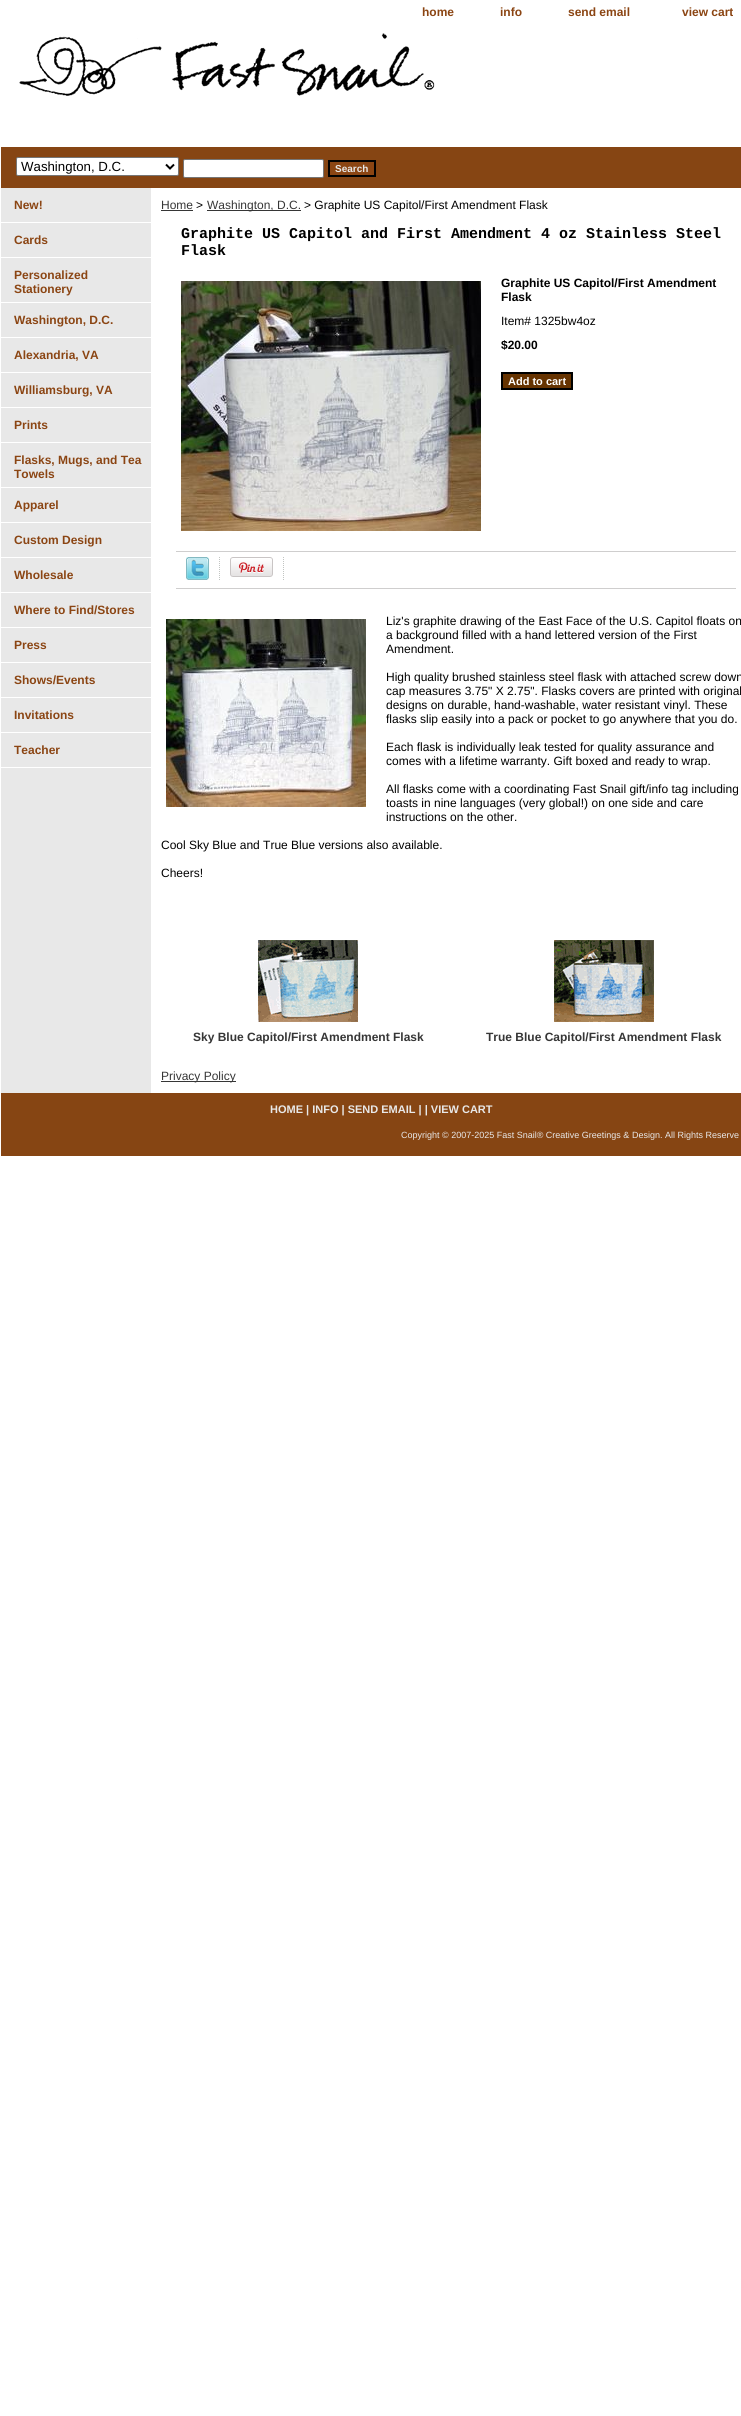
#include <cairo.h>
#include <math.h>
#include <stddef.h>

typedef struct { double x, y; const char *s; } line_t;

static void ink(cairo_t *ctx, unsigned color) {
    cairo_set_source_rgb(ctx, (color >> 16) / 255.0, (color >> 8 & 255) / 255.0, (color & 255) / 255.0);
}

static void round_path(cairo_t *ctx, double x, double y, double w, double h, double r) {
    cairo_new_sub_path(ctx);
    cairo_arc(ctx, x + w - r, y + h - r, r, 0, M_PI / 2);
    cairo_arc(ctx, x + r, y + h - r, r, M_PI / 2, M_PI);
    cairo_arc(ctx, x + r, y + r, r, M_PI, 1.5 * M_PI);
    cairo_arc(ctx, x + w - r, y + r, r, 1.5 * M_PI, 2 * M_PI);
    cairo_close_path(ctx);
}

static void paste(cairo_t *ctx, const char *path, double x, double y, double w, double h) {
    cairo_surface_t *image = cairo_image_surface_create_from_png(path);
    cairo_save(ctx);
    cairo_set_source_surface(ctx, image, x, y);
    cairo_rectangle(ctx, x, y, w, h);
    cairo_fill(ctx);
    cairo_restore(ctx);
    cairo_surface_destroy(image);
}

int main(void) {
    cairo_surface_t *surface = cairo_image_surface_create(CAIRO_FORMAT_RGB24, 741, 2416);
    cairo_t *ctx = cairo_create(surface);
    cairo_font_options_t *options = cairo_font_options_create();
    cairo_font_options_set_hint_metrics(options, CAIRO_HINT_METRICS_OFF);
    cairo_font_options_set_hint_style(options, CAIRO_HINT_STYLE_NONE);
    cairo_set_font_options(ctx, options);
    cairo_set_miter_limit(ctx, 4);
    ink(ctx, 0xFFFFFF);
    cairo_paint(ctx);
    cairo_select_font_face(ctx, "Liberation Sans", CAIRO_FONT_SLANT_NORMAL, CAIRO_FONT_WEIGHT_BOLD);
    cairo_set_font_size(ctx, 12);
    ink(ctx, 0x8B4513);
    {
        static const line_t items[] = {
            {422, 16, "home"},
            {500, 16, "info"},
            {568, 16, "send email"},
            {682, 16, "view cart"},
        };
        for (size_t i = 0; i < sizeof items / sizeof *items; i++) {
            cairo_move_to(ctx, items[i].x, items[i].y);
            cairo_show_text(ctx, items[i].s);
        }
    }
    paste(ctx, "media/1.png", 19, 33, 416, 63);
    ink(ctx, 0x864513);
    cairo_rectangle(ctx, 1, 147, 740, 41);
    cairo_fill(ctx);
    ink(ctx, 0xFFFFFF);
    round_path(ctx, 16.5, 157.5, 162, 18, 1.5);
    cairo_fill_preserve(ctx);
    ink(ctx, 0x767676);
    cairo_set_line_width(ctx, 1);
    cairo_stroke(ctx);
    cairo_new_path(ctx);
    cairo_move_to(ctx, 166, 164.5);
    cairo_line_to(ctx, 170, 168.5);
    cairo_line_to(ctx, 174, 164.5);
    ink(ctx, 0x000000);
    cairo_set_line_width(ctx, 2);
    cairo_stroke(ctx);
    cairo_select_font_face(ctx, "Liberation Sans", CAIRO_FONT_SLANT_NORMAL, CAIRO_FONT_WEIGHT_NORMAL);
    cairo_set_font_size(ctx, 13.25);
    cairo_move_to(ctx, 21, 171);
    cairo_show_text(ctx, "Washington, D.C.");
    ink(ctx, 0xFFFFFF);
    round_path(ctx, 183.5, 159.5, 140, 18, 1.5);
    cairo_fill_preserve(ctx);
    ink(ctx, 0x767676);
    cairo_set_line_width(ctx, 1);
    cairo_stroke(ctx);
    ink(ctx, 0x8B4513);
    cairo_rectangle(ctx, 329, 161, 46, 15);
    cairo_fill_preserve(ctx);
    ink(ctx, 0x000000);
    cairo_set_line_width(ctx, 2);
    cairo_stroke(ctx);
    cairo_select_font_face(ctx, "Liberation Sans", CAIRO_FONT_SLANT_NORMAL, CAIRO_FONT_WEIGHT_BOLD);
    cairo_set_font_size(ctx, 10);
    ink(ctx, 0xE8E8E8);
    cairo_move_to(ctx, 335, 172);
    cairo_show_text(ctx, "Search");
    cairo_rectangle(ctx, 1, 188, 150, 905);
    cairo_fill(ctx);
    ink(ctx, 0xFFFFFF);
    cairo_rectangle(ctx, 1, 222, 150, 1);
    cairo_fill(ctx);
    cairo_set_font_size(ctx, 12);
    ink(ctx, 0x8B4513);
    cairo_move_to(ctx, 14, 209);
    cairo_show_text(ctx, "New!");
    ink(ctx, 0xFFFFFF);
    cairo_rectangle(ctx, 1, 257, 150, 1);
    cairo_fill(ctx);
    ink(ctx, 0x8B4513);
    cairo_move_to(ctx, 14, 244);
    cairo_show_text(ctx, "Cards");
    ink(ctx, 0xFFFFFF);
    cairo_rectangle(ctx, 1, 302, 150, 1);
    cairo_fill(ctx);
    ink(ctx, 0x8B4513);
    cairo_move_to(ctx, 14, 279);
    cairo_show_text(ctx, "Personalized");
    cairo_move_to(ctx, 14, 293);
    cairo_show_text(ctx, "Stationery");
    ink(ctx, 0xFFFFFF);
    cairo_rectangle(ctx, 1, 337, 150, 1);
    cairo_fill(ctx);
    ink(ctx, 0x8B4513);
    cairo_move_to(ctx, 14, 324);
    cairo_show_text(ctx, "Washington, D.C.");
    ink(ctx, 0xFFFFFF);
    cairo_rectangle(ctx, 1, 372, 150, 1);
    cairo_fill(ctx);
    ink(ctx, 0x8B4513);
    cairo_move_to(ctx, 14, 359);
    cairo_show_text(ctx, "Alexandria, VA");
    ink(ctx, 0xFFFFFF);
    cairo_rectangle(ctx, 1, 407, 150, 1);
    cairo_fill(ctx);
    ink(ctx, 0x8B4513);
    cairo_move_to(ctx, 14, 394);
    cairo_show_text(ctx, "Williamsburg, VA");
    ink(ctx, 0xFFFFFF);
    cairo_rectangle(ctx, 1, 442, 150, 1);
    cairo_fill(ctx);
    ink(ctx, 0x8B4513);
    cairo_move_to(ctx, 14, 429);
    cairo_show_text(ctx, "Prints");
    ink(ctx, 0xFFFFFF);
    cairo_rectangle(ctx, 1, 487, 150, 1);
    cairo_fill(ctx);
    ink(ctx, 0x8B4513);
    cairo_move_to(ctx, 14, 464);
    cairo_show_text(ctx, "Flasks, Mugs, and Tea");
    cairo_move_to(ctx, 14, 478);
    cairo_show_text(ctx, "Towels");
    ink(ctx, 0xFFFFFF);
    cairo_rectangle(ctx, 1, 522, 150, 1);
    cairo_fill(ctx);
    ink(ctx, 0x8B4513);
    cairo_move_to(ctx, 14, 509);
    cairo_show_text(ctx, "Apparel");
    ink(ctx, 0xFFFFFF);
    cairo_rectangle(ctx, 1, 557, 150, 1);
    cairo_fill(ctx);
    ink(ctx, 0x8B4513);
    cairo_move_to(ctx, 14, 544);
    cairo_show_text(ctx, "Custom Design");
    ink(ctx, 0xFFFFFF);
    cairo_rectangle(ctx, 1, 592, 150, 1);
    cairo_fill(ctx);
    ink(ctx, 0x8B4513);
    cairo_move_to(ctx, 14, 579);
    cairo_show_text(ctx, "Wholesale");
    ink(ctx, 0xFFFFFF);
    cairo_rectangle(ctx, 1, 627, 150, 1);
    cairo_fill(ctx);
    ink(ctx, 0x8B4513);
    cairo_move_to(ctx, 14, 614);
    cairo_show_text(ctx, "Where to Find/Stores");
    ink(ctx, 0xFFFFFF);
    cairo_rectangle(ctx, 1, 662, 150, 1);
    cairo_fill(ctx);
    ink(ctx, 0x8B4513);
    cairo_move_to(ctx, 14, 649);
    cairo_show_text(ctx, "Press");
    ink(ctx, 0xFFFFFF);
    cairo_rectangle(ctx, 1, 697, 150, 1);
    cairo_fill(ctx);
    ink(ctx, 0x8B4513);
    cairo_move_to(ctx, 14, 684);
    cairo_show_text(ctx, "Shows/Events");
    ink(ctx, 0xFFFFFF);
    cairo_rectangle(ctx, 1, 732, 150, 1);
    cairo_fill(ctx);
    ink(ctx, 0x8B4513);
    cairo_move_to(ctx, 14, 719);
    cairo_show_text(ctx, "Invitations");
    ink(ctx, 0xFFFFFF);
    cairo_rectangle(ctx, 1, 767, 150, 1);
    cairo_fill(ctx);
    ink(ctx, 0x8B4513);
    cairo_move_to(ctx, 14, 754);
    cairo_show_text(ctx, "Teacher");
    cairo_select_font_face(ctx, "Liberation Sans", CAIRO_FONT_SLANT_NORMAL, CAIRO_FONT_WEIGHT_NORMAL);
    ink(ctx, 0x363636);
    cairo_move_to(ctx, 161, 209);
    cairo_show_text(ctx, "Home");
    cairo_rectangle(ctx, 161, 210, 32, 1);
    cairo_fill(ctx);
    ink(ctx, 0x000000);
    cairo_move_to(ctx, 196, 209);
    cairo_show_text(ctx, ">");
    ink(ctx, 0x363636);
    cairo_rectangle(ctx, 207, 210, 94, 1);
    cairo_fill(ctx);
    cairo_move_to(ctx, 207, 209);
    cairo_show_text(ctx, "Washington, D.C.");
    ink(ctx, 0x000000);
    cairo_move_to(ctx, 304, 209);
    cairo_show_text(ctx, "> Graphite US Capitol/First Amendment Flask");
    cairo_select_font_face(ctx, "Liberation Mono", CAIRO_FONT_SLANT_NORMAL, CAIRO_FONT_WEIGHT_BOLD);
    cairo_set_font_size(ctx, 15);
    cairo_move_to(ctx, 181, 238);
    cairo_show_text(ctx, "Graphite US Capitol and First Amendment 4 oz Stainless Steel");
    cairo_move_to(ctx, 181, 255);
    cairo_show_text(ctx, "Flask");
    paste(ctx, "media/2.png", 181, 281, 300, 250);
    cairo_select_font_face(ctx, "Liberation Sans", CAIRO_FONT_SLANT_NORMAL, CAIRO_FONT_WEIGHT_BOLD);
    cairo_set_font_size(ctx, 12);
    cairo_move_to(ctx, 501, 287);
    cairo_show_text(ctx, "Graphite US Capitol/First Amendment");
    cairo_move_to(ctx, 501, 301);
    cairo_show_text(ctx, "Flask");
    cairo_select_font_face(ctx, "Liberation Sans", CAIRO_FONT_SLANT_NORMAL, CAIRO_FONT_WEIGHT_NORMAL);
    cairo_move_to(ctx, 501, 325);
    cairo_show_text(ctx, "Item# 1325bw4oz");
    cairo_select_font_face(ctx, "Liberation Sans", CAIRO_FONT_SLANT_NORMAL, CAIRO_FONT_WEIGHT_BOLD);
    cairo_move_to(ctx, 501, 349);
    cairo_show_text(ctx, "$20.00");
    ink(ctx, 0x663300);
    cairo_rectangle(ctx, 502, 373, 70, 16);
    cairo_fill_preserve(ctx);
    ink(ctx, 0x000000);
    cairo_stroke(ctx);
    cairo_set_font_size(ctx, 11);
    ink(ctx, 0xFFFFFF);
    cairo_move_to(ctx, 508, 385);
    cairo_show_text(ctx, "Add to cart");
    ink(ctx, 0xCFCECE);
    cairo_rectangle(ctx, 176, 551, 560, 1);
    cairo_fill(ctx);
    paste(ctx, "media/3.png", 186, 557, 23, 23);
    paste(ctx, "media/4.png", 219, 557, 1, 23);
    paste(ctx, "media/5.png", 230, 557, 43, 20);
    paste(ctx, "media/4.png", 283, 557, 1, 23);
    cairo_rectangle(ctx, 176, 588, 560, 1);
    cairo_fill(ctx);
    cairo_select_font_face(ctx, "Liberation Sans", CAIRO_FONT_SLANT_NORMAL, CAIRO_FONT_WEIGHT_NORMAL);
    cairo_set_font_size(ctx, 12);
    ink(ctx, 0x000000);
    {
        static const line_t items[] = {
            {386, 625, "Liz's graphite drawing of the East Face of the U.S. Capitol floats on"},
            {386, 639, "a background filled with a hand lettered version of the First"},
            {386, 653, "Amendment."},
            {386, 681, "High quality brushed stainless steel flask with attached screw down"},
            {386, 695, "cap measures 3.75\" X 2.75\". Flasks covers are printed with original"},
            {386, 709, "designs on durable, hand-washable, water resistant vinyl. These"},
            {386, 723, "flasks slip easily into a pack or pocket to go anywhere that you do."},
            {386, 751, "Each flask is individually leak tested for quality assurance and"},
            {386, 765, "comes with a lifetime warranty. Gift boxed and ready to wrap."},
            {386, 793, "All flasks come with a coordinating Fast Snail gift/info tag including"},
            {386, 807, "toasts in nine languages (very global!) on one side and care"},
            {386, 821, "instructions on the other."},
            {161, 849, "Cool Sky Blue and True Blue versions also available."},
            {161, 877, "Cheers!"},
        };
        for (size_t i = 0; i < sizeof items / sizeof *items; i++) {
            cairo_move_to(ctx, items[i].x, items[i].y);
            cairo_show_text(ctx, items[i].s);
        }
    }
    paste(ctx, "media/6.png", 166, 619, 200, 188);
    paste(ctx, "media/7.png", 258, 940, 100, 82);
    cairo_select_font_face(ctx, "Liberation Sans", CAIRO_FONT_SLANT_NORMAL, CAIRO_FONT_WEIGHT_BOLD);
    ink(ctx, 0x363636);
    cairo_move_to(ctx, 193, 1041);
    cairo_show_text(ctx, "Sky Blue Capitol/First Amendment Flask");
    paste(ctx, "media/8.png", 554, 940, 100, 82);
    cairo_move_to(ctx, 486, 1041);
    cairo_show_text(ctx, "True Blue Capitol/First Amendment Flask");
    cairo_rectangle(ctx, 161, 1081, 75, 1);
    cairo_fill(ctx);
    cairo_select_font_face(ctx, "Liberation Sans", CAIRO_FONT_SLANT_NORMAL, CAIRO_FONT_WEIGHT_NORMAL);
    cairo_move_to(ctx, 161, 1080);
    cairo_show_text(ctx, "Privacy Policy");
    ink(ctx, 0x864513);
    cairo_rectangle(ctx, 1, 1093, 740, 63);
    cairo_fill(ctx);
    cairo_select_font_face(ctx, "Liberation Sans", CAIRO_FONT_SLANT_NORMAL, CAIRO_FONT_WEIGHT_BOLD);
    cairo_set_font_size(ctx, 11);
    ink(ctx, 0xE8E8E8);
    cairo_move_to(ctx, 270, 1113);
    cairo_show_text(ctx, "HOME | INFO | SEND EMAIL | | VIEW CART");
    cairo_select_font_face(ctx, "Liberation Sans", CAIRO_FONT_SLANT_NORMAL, CAIRO_FONT_WEIGHT_NORMAL);
    cairo_set_font_size(ctx, 9);
    cairo_move_to(ctx, 401, 1138);
    cairo_show_text(ctx, "Copyright © 2007-2025 Fast Snail® Creative Greetings & Design. All Rights Reserve");
    cairo_surface_write_to_png(surface, "image.png");
    cairo_font_options_destroy(options);
    cairo_destroy(ctx);
    cairo_surface_destroy(surface);
    return 0;
}
